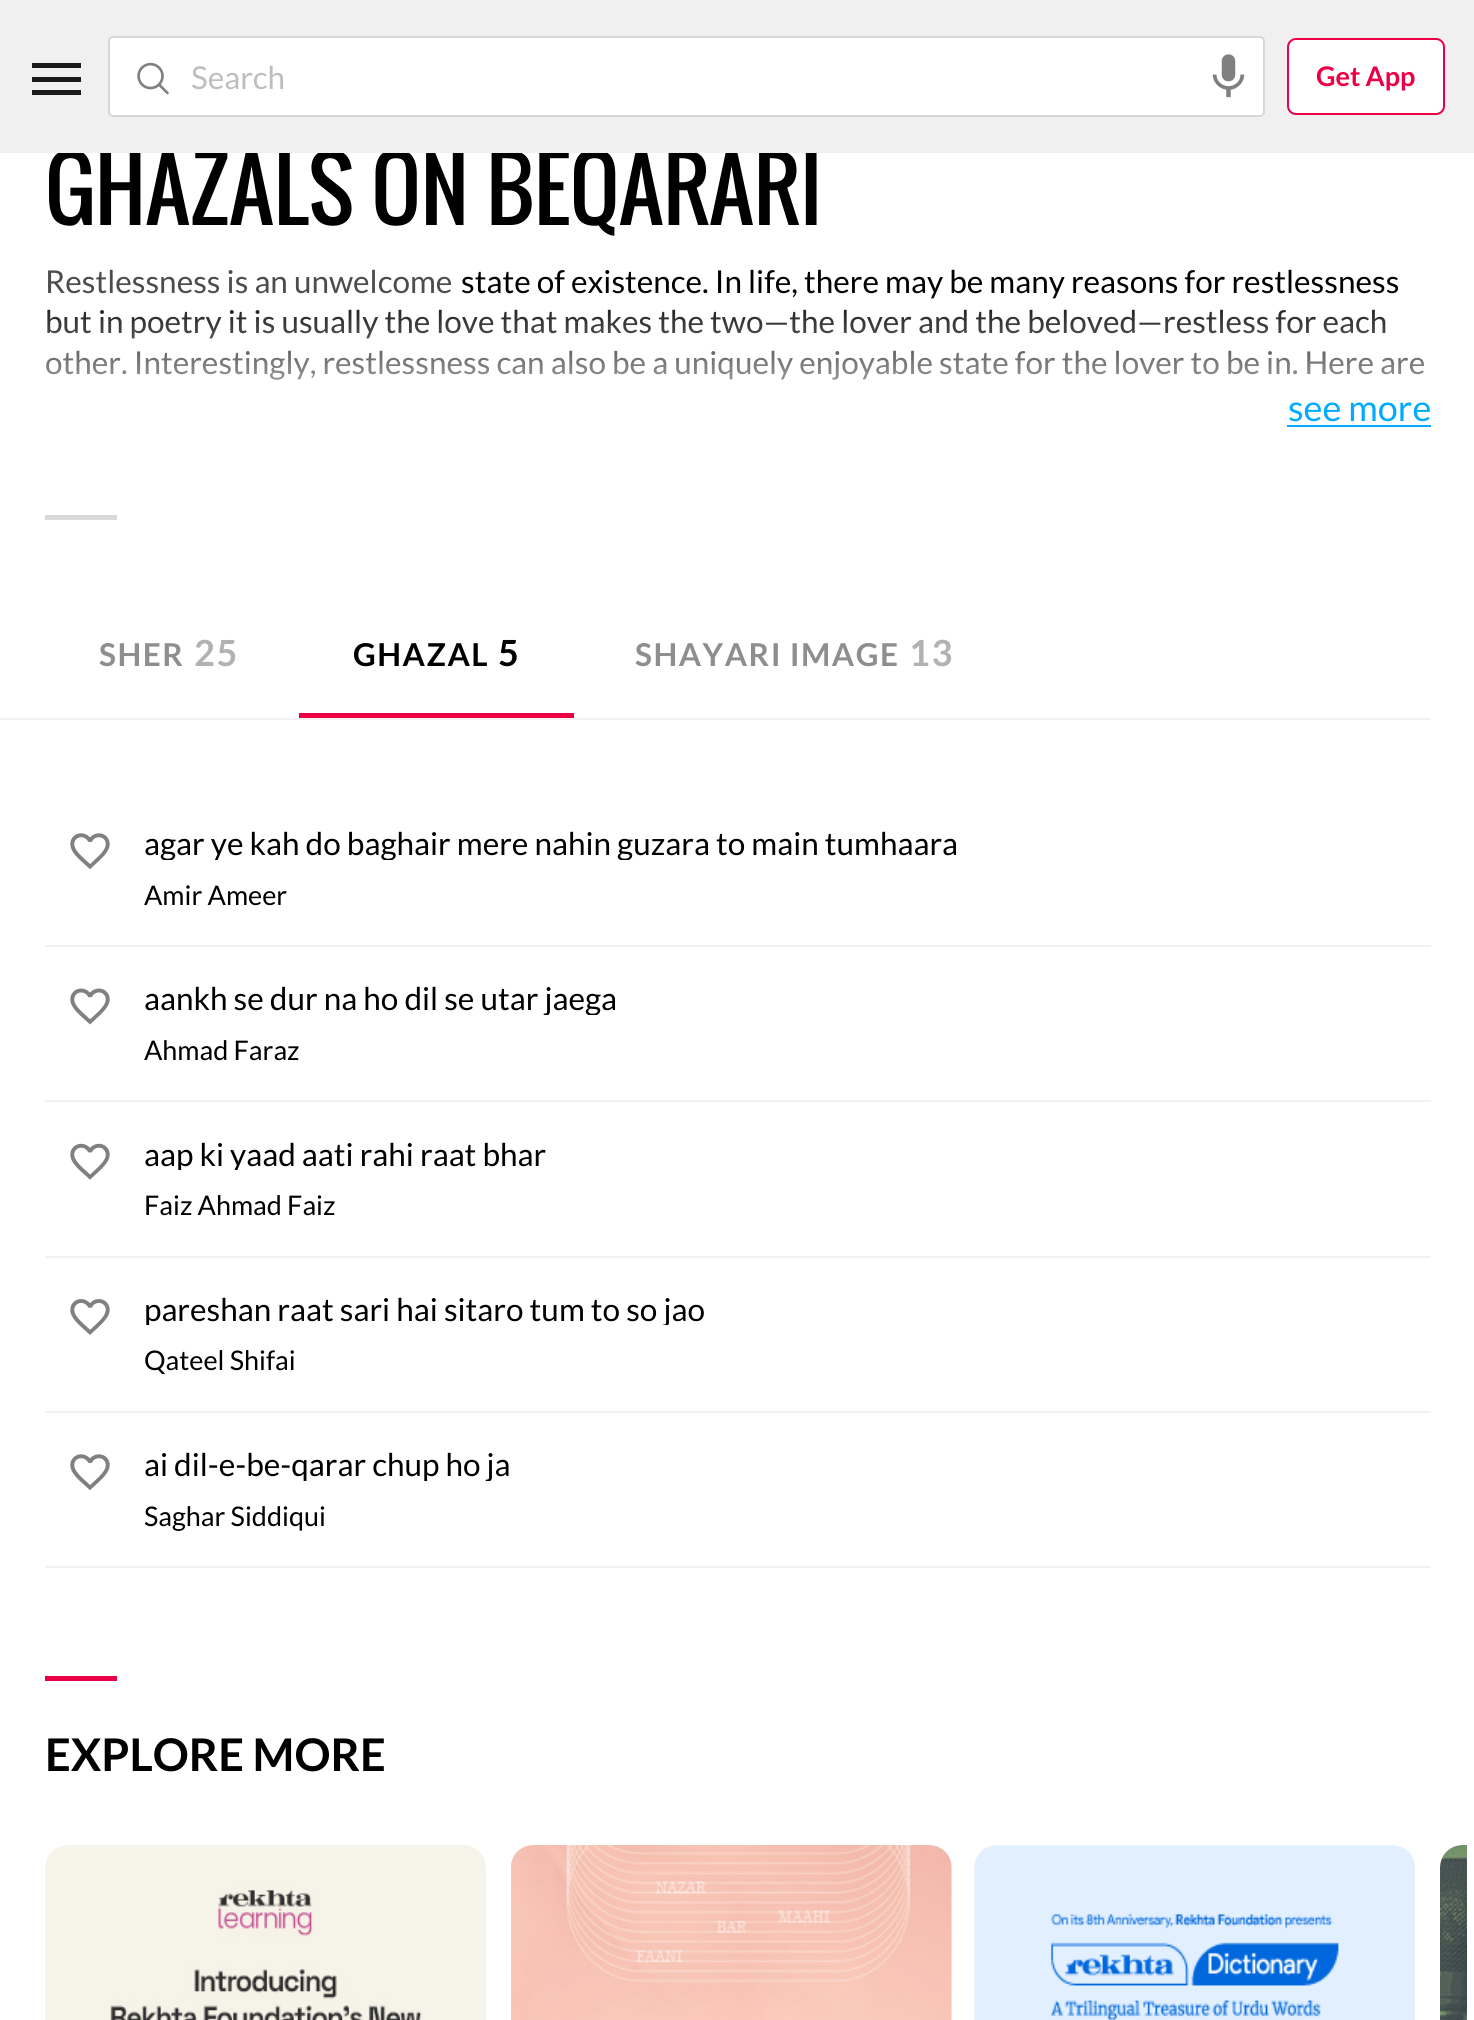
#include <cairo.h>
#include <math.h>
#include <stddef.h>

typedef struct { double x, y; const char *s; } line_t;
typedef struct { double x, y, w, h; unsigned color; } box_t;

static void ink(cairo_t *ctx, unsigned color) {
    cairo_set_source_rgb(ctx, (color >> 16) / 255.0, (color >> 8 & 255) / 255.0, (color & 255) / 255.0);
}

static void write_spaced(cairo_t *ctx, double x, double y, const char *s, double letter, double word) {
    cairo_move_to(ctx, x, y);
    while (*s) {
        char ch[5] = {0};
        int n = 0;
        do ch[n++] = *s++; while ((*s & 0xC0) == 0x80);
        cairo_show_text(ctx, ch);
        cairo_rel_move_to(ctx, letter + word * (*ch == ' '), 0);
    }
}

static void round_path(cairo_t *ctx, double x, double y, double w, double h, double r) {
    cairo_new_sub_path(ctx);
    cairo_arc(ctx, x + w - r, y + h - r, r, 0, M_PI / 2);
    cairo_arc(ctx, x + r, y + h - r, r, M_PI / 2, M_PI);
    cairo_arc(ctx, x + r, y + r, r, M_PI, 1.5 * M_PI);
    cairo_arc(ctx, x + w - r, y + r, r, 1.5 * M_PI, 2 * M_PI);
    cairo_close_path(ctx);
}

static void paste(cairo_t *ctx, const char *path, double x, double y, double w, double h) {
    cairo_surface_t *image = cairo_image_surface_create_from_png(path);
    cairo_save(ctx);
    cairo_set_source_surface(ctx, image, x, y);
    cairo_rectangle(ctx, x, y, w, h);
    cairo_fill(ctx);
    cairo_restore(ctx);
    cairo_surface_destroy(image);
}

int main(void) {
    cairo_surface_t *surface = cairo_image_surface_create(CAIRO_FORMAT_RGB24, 1474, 2020);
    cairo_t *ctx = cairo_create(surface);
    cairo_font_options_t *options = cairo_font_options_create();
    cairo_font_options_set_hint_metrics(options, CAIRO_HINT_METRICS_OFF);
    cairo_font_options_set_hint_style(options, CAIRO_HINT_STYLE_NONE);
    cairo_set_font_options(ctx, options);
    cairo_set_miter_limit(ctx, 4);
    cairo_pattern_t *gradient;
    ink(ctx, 0xFFFFFF);
    cairo_paint(ctx);
    cairo_select_font_face(ctx, "Oswald", CAIRO_FONT_SLANT_NORMAL, CAIRO_FONT_WEIGHT_NORMAL);
    cairo_set_font_size(ctx, 85.5);
    ink(ctx, 0x000000);
    cairo_move_to(ctx, 45, 225);
    cairo_show_text(ctx, "GHAZALS ON BEQARARI");
    {
        static const box_t items[] = {
            {0, 0, 1474, 153, 0xF0F0F0},
            {32, 63, 49, 5, 0x1A1A1A},
            {32, 77, 49, 5, 0x1A1A1A},
            {32, 90, 49, 5, 0x1A1A1A},
        };
        for (size_t i = 0; i < sizeof items / sizeof *items; i++) {
            ink(ctx, items[i].color);
            cairo_rectangle(ctx, items[i].x, items[i].y, items[i].w, items[i].h);
            cairo_fill(ctx);
        }
    }
    ink(ctx, 0xFFFFFF);
    round_path(ctx, 109, 37, 1155, 79, 4);
    cairo_fill_preserve(ctx);
    ink(ctx, 0xD7D7D7);
    cairo_stroke(ctx);
    paste(ctx, "media/1.png", 137, 62, 32, 33);
    cairo_select_font_face(ctx, "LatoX", CAIRO_FONT_SLANT_NORMAL, CAIRO_FONT_WEIGHT_NORMAL);
    cairo_set_font_size(ctx, 31.5);
    ink(ctx, 0xBEBEBE);
    cairo_move_to(ctx, 191, 89);
    cairo_show_text(ctx, "Search");
    paste(ctx, "media/2.png", 1212, 54, 33, 44);
    ink(ctx, 0xFFFFFF);
    round_path(ctx, 1288, 39, 156, 75, 8);
    cairo_fill_preserve(ctx);
    ink(ctx, 0xEB0046);
    cairo_stroke(ctx);
    cairo_select_font_face(ctx, "LatoX", CAIRO_FONT_SLANT_NORMAL, CAIRO_FONT_WEIGHT_BOLD);
    cairo_set_font_size(ctx, 27);
    cairo_move_to(ctx, 1316, 86);
    cairo_show_text(ctx, "Get App");
    cairo_select_font_face(ctx, "LatoX", CAIRO_FONT_SLANT_NORMAL, CAIRO_FONT_WEIGHT_NORMAL);
    cairo_set_font_size(ctx, 31.5);
    ink(ctx, 0x000000);
    {
        static const line_t items[] = {
            {461, 293, "state of existence. In life, there may be many reasons for restlessness"},
            {45, 333, "but in poetry it is usually the love that makes the two—the lover and the beloved—restless for each"},
            {45, 374, "other. Interestingly, restlessness can also be a uniquely enjoyable state for the lover to be in. Here are"},
        };
        for (size_t i = 0; i < sizeof items / sizeof *items; i++) {
            cairo_move_to(ctx, items[i].x, items[i].y);
            cairo_show_text(ctx, items[i].s);
        }
    }
    ink(ctx, 0x4C4C4C);
    cairo_move_to(ctx, 45, 293);
    cairo_show_text(ctx, "Restlessness is an unwelcome");
    gradient = cairo_pattern_create_linear(738, 288, 738, 446);
    cairo_pattern_add_color_stop_rgba(gradient, 0, 1, 1, 1, 0);
    cairo_pattern_add_color_stop_rgba(gradient, 0.56, 1, 1, 1, 0.56);
    cairo_pattern_add_color_stop_rgba(gradient, 1, 1, 1, 1, 1);
    cairo_set_source(ctx, gradient);
    cairo_pattern_destroy(gradient);
    cairo_rectangle(ctx, 46, 291, 1378, 89);
    cairo_fill(ctx);
    ink(ctx, 0x00AAFF);
    cairo_rectangle(ctx, 1287, 425, 144, 2);
    cairo_fill(ctx);
    cairo_set_font_size(ctx, 36);
    cairo_move_to(ctx, 1288, 421);
    cairo_show_text(ctx, "see more");
    ink(ctx, 0xD9D9D9);
    cairo_rectangle(ctx, 45, 515, 72, 5);
    cairo_fill(ctx);
    ink(ctx, 0xF2F2F2);
    cairo_rectangle(ctx, 0, 718, 1431, 2);
    cairo_fill(ctx);
    cairo_select_font_face(ctx, "LatoX", CAIRO_FONT_SLANT_NORMAL, CAIRO_FONT_WEIGHT_BOLD);
    cairo_set_font_size(ctx, 31.5);
    ink(ctx, 0x8E8E8E);
    write_spaced(ctx, 99, 666, "SHER", 1.5, 0);
    cairo_set_font_size(ctx, 36);
    ink(ctx, 0xB2B2B2);
    write_spaced(ctx, 194, 666, "25", 1.5, 0);
    cairo_set_font_size(ctx, 31.5);
    ink(ctx, 0x000000);
    write_spaced(ctx, 353, 666, "GHAZAL", 1.5, 0);
    cairo_set_font_size(ctx, 36);
    write_spaced(ctx, 498, 666, "5", 1.5, 0);
    ink(ctx, 0xEB0045);
    cairo_rectangle(ctx, 299, 713, 275, 5);
    cairo_fill(ctx);
    cairo_set_font_size(ctx, 31.5);
    ink(ctx, 0x8E8E8E);
    write_spaced(ctx, 635, 666, "SHAYARI IMAGE", 1.5, 0);
    cairo_set_font_size(ctx, 36);
    ink(ctx, 0xB2B2B2);
    write_spaced(ctx, 909, 666, "13", 1.5, 0);
    ink(ctx, 0xF2F2F2);
    cairo_rectangle(ctx, 45, 945, 1386, 2);
    cairo_fill(ctx);
    paste(ctx, "media/3.png", 70, 833, 40, 37);
    cairo_save(ctx);
    cairo_rectangle(ctx, 144, 828, 1107, 32);
    cairo_clip(ctx);
    cairo_select_font_face(ctx, "LatoX", CAIRO_FONT_SLANT_NORMAL, CAIRO_FONT_WEIGHT_NORMAL);
    cairo_set_font_size(ctx, 31.5);
    ink(ctx, 0x000000);
    cairo_move_to(ctx, 144, 855);
    cairo_show_text(ctx, "agar ye kah do baghair mere nahin guzara to main tumhaara");
    cairo_restore(ctx);
    cairo_select_font_face(ctx, "LatoX", CAIRO_FONT_SLANT_NORMAL, CAIRO_FONT_WEIGHT_NORMAL);
    cairo_set_font_size(ctx, 27);
    ink(ctx, 0x000000);
    cairo_move_to(ctx, 144, 905);
    cairo_show_text(ctx, "Amir Ameer");
    ink(ctx, 0xF2F2F2);
    cairo_rectangle(ctx, 45, 1100, 1386, 2);
    cairo_fill(ctx);
    paste(ctx, "media/4.png", 70, 988, 40, 37);
    cairo_save(ctx);
    cairo_rectangle(ctx, 144, 983, 1107, 32);
    cairo_clip(ctx);
    cairo_set_font_size(ctx, 31.5);
    ink(ctx, 0x000000);
    cairo_move_to(ctx, 144, 1010);
    cairo_show_text(ctx, "aankh se dur na ho dil se utar jaega");
    cairo_restore(ctx);
    ink(ctx, 0x000000);
    cairo_move_to(ctx, 144, 1060);
    cairo_show_text(ctx, "Ahmad Faraz");
    ink(ctx, 0xF2F2F2);
    cairo_rectangle(ctx, 45, 1256, 1386, 2);
    cairo_fill(ctx);
    paste(ctx, "media/5.png", 70, 1143, 40, 37);
    cairo_save(ctx);
    cairo_rectangle(ctx, 144, 1139, 1107, 31);
    cairo_clip(ctx);
    cairo_set_font_size(ctx, 31.5);
    ink(ctx, 0x000000);
    cairo_move_to(ctx, 144, 1166);
    cairo_show_text(ctx, "aap ki yaad aati rahi raat bhar");
    cairo_restore(ctx);
    ink(ctx, 0x000000);
    cairo_move_to(ctx, 144, 1215);
    cairo_show_text(ctx, "Faiz Ahmad Faiz");
    ink(ctx, 0xF2F2F2);
    cairo_rectangle(ctx, 45, 1411, 1386, 2);
    cairo_fill(ctx);
    paste(ctx, "media/6.png", 70, 1299, 40, 36);
    cairo_save(ctx);
    cairo_rectangle(ctx, 144, 1294, 1107, 31);
    cairo_clip(ctx);
    cairo_set_font_size(ctx, 31.5);
    ink(ctx, 0x000000);
    cairo_move_to(ctx, 144, 1321);
    cairo_show_text(ctx, "pareshan raat sari hai sitaro tum to so jao");
    cairo_restore(ctx);
    ink(ctx, 0x000000);
    cairo_move_to(ctx, 144, 1370);
    cairo_show_text(ctx, "Qateel Shifai");
    ink(ctx, 0xF2F2F2);
    cairo_rectangle(ctx, 45, 1566, 1386, 2);
    cairo_fill(ctx);
    paste(ctx, "media/3.png", 70, 1454, 40, 37);
    cairo_save(ctx);
    cairo_rectangle(ctx, 144, 1449, 1107, 32);
    cairo_clip(ctx);
    cairo_set_font_size(ctx, 31.5);
    ink(ctx, 0x000000);
    cairo_move_to(ctx, 144, 1476);
    cairo_show_text(ctx, "ai dil-e-be-qarar chup ho ja");
    cairo_restore(ctx);
    ink(ctx, 0x000000);
    cairo_move_to(ctx, 144, 1526);
    cairo_show_text(ctx, "Saghar Siddiqui");
    ink(ctx, 0xEB0046);
    cairo_rectangle(ctx, 45, 1676, 72, 5);
    cairo_fill(ctx);
    cairo_select_font_face(ctx, "LatoX", CAIRO_FONT_SLANT_NORMAL, CAIRO_FONT_WEIGHT_BOLD);
    cairo_set_font_size(ctx, 45);
    ink(ctx, 0x000000);
    cairo_move_to(ctx, 45, 1771);
    cairo_show_text(ctx, "EXPLORE MORE");
    paste(ctx, "media/7.png", 45, 1845, 441, 175);
    paste(ctx, "media/8.png", 510, 1845, 442, 175);
    paste(ctx, "media/9.png", 974, 1845, 441, 175);
    paste(ctx, "media/10.png", 1440, 1845, 27, 175);
    cairo_surface_write_to_png(surface, "image.png");
    cairo_font_options_destroy(options);
    cairo_destroy(ctx);
    cairo_surface_destroy(surface);
    return 0;
}
